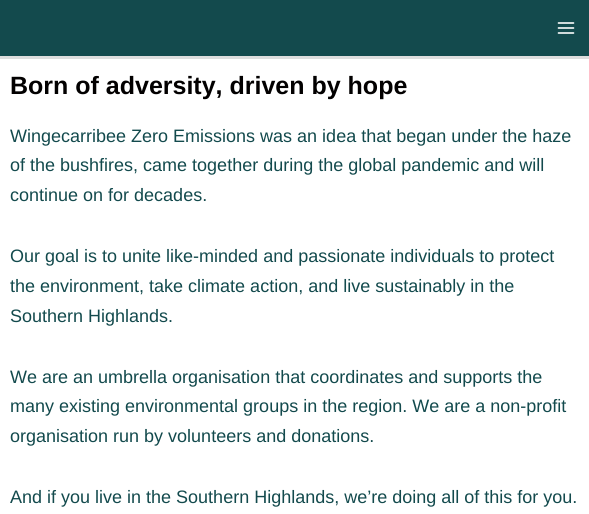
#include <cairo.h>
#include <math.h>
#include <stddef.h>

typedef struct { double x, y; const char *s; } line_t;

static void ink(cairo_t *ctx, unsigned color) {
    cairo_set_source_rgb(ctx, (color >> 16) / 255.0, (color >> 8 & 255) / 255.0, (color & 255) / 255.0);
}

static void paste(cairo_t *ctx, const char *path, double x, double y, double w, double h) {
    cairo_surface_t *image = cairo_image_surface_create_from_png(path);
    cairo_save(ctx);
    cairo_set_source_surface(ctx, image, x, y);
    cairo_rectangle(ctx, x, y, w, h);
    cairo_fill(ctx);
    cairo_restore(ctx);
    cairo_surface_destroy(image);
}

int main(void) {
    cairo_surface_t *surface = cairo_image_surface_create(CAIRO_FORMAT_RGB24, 589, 514);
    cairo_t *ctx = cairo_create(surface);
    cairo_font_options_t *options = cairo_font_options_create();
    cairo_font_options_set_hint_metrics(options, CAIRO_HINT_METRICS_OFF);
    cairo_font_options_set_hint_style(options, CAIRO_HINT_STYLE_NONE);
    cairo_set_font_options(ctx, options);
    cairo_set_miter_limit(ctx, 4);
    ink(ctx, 0xFFFFFF);
    cairo_paint(ctx);
    ink(ctx, 0x134A4D);
    cairo_rectangle(ctx, 0, 0, 589, 56);
    cairo_fill(ctx);
    ink(ctx, 0xDDDDDD);
    cairo_rectangle(ctx, 0, 56, 589, 3);
    cairo_fill(ctx);
    paste(ctx, "media/1.png", 557, 22, 18, 12);
    cairo_select_font_face(ctx, "Liberation Sans", CAIRO_FONT_SLANT_NORMAL, CAIRO_FONT_WEIGHT_BOLD);
    cairo_set_font_size(ctx, 25);
    ink(ctx, 0x020000);
    cairo_move_to(ctx, 10, 94);
    cairo_show_text(ctx, "Born of adversity, driven by hope");
    cairo_select_font_face(ctx, "Liberation Sans", CAIRO_FONT_SLANT_NORMAL, CAIRO_FONT_WEIGHT_NORMAL);
    cairo_set_font_size(ctx, 18);
    ink(ctx, 0x134A4D);
    {
        static const line_t items[] = {
            {10, 142, "Wingecarribee Zero Emissions was an idea that began under the haze"},
            {10, 171, "of the bushfires, came together during the global pandemic and will"},
            {10, 201, "continue on for decades."},
            {10, 262, "Our goal is to unite like-minded and passionate individuals to protect"},
            {10, 292, "the environment, take climate action, and live sustainably in the"},
            {10, 322, "Southern Highlands."},
            {10, 383, "We are an umbrella organisation that coordinates and supports the"},
            {10, 412, "many existing environmental groups in the region. We are a non-profit"},
            {10, 442, "organisation run by volunteers and donations."},
            {10, 503, "And if you live in the Southern Highlands, we’re doing all of this for you."},
        };
        for (size_t i = 0; i < sizeof items / sizeof *items; i++) {
            cairo_move_to(ctx, items[i].x, items[i].y);
            cairo_show_text(ctx, items[i].s);
        }
    }
    cairo_surface_write_to_png(surface, "image.png");
    cairo_font_options_destroy(options);
    cairo_destroy(ctx);
    cairo_surface_destroy(surface);
    return 0;
}
